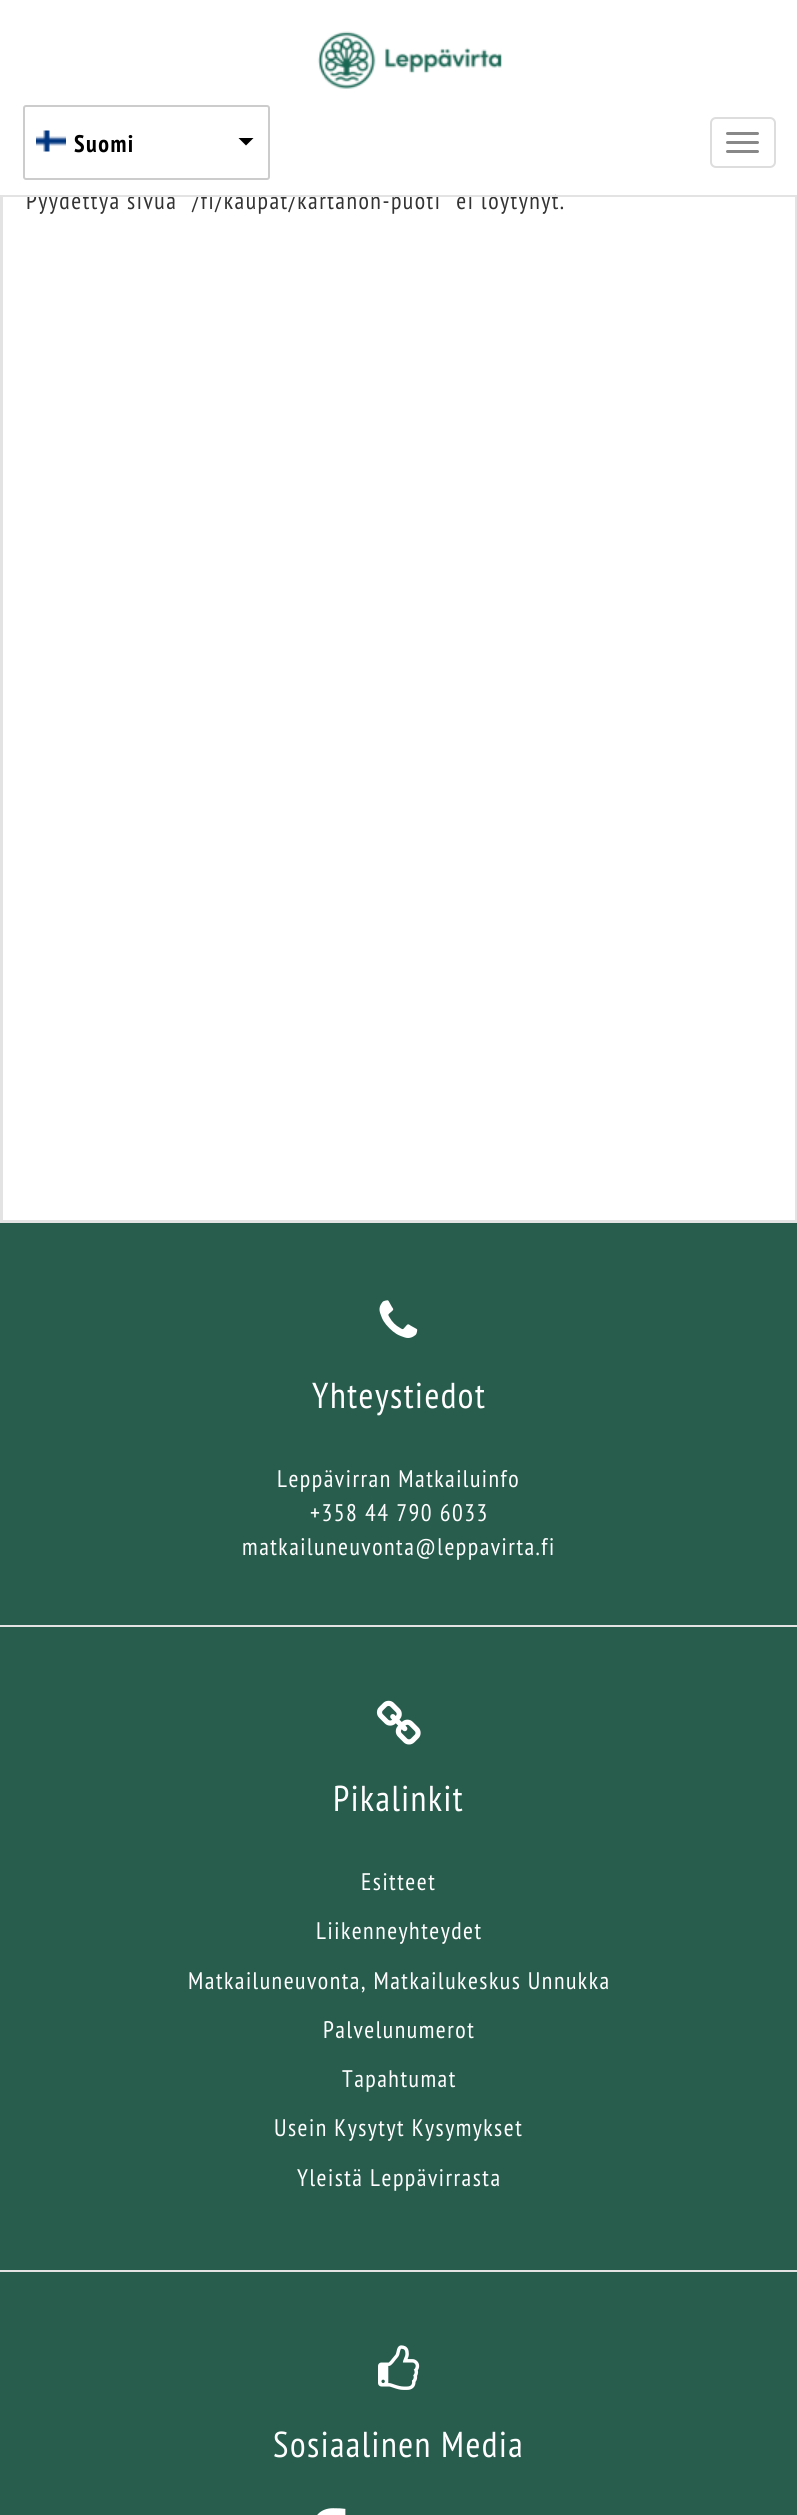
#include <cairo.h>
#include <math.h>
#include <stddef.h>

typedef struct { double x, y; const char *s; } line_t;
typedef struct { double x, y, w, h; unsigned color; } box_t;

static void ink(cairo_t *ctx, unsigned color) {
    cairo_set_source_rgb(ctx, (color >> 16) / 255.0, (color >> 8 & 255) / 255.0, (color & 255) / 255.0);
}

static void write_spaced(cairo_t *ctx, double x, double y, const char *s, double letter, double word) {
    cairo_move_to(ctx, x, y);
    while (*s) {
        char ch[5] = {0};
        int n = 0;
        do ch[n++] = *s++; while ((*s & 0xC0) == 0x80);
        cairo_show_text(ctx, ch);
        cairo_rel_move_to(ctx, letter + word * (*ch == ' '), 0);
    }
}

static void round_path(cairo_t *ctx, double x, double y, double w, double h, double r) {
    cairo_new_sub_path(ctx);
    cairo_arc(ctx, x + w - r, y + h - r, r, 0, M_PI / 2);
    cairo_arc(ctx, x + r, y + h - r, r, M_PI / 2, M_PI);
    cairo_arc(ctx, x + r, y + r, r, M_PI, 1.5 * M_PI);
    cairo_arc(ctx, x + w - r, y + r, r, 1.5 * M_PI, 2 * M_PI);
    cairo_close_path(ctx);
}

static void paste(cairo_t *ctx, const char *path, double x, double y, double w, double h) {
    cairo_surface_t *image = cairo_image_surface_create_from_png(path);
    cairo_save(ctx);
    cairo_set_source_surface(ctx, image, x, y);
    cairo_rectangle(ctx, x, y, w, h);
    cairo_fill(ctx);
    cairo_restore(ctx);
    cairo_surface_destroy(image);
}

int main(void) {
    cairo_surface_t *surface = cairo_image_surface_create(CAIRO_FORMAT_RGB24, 797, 2515);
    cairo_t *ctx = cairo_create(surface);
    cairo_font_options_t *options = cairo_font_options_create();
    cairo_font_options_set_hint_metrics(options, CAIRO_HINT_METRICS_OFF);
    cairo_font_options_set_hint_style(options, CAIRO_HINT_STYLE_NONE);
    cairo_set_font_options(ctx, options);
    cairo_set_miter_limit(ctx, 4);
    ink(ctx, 0xFFFFFF);
    cairo_paint(ctx);
    cairo_select_font_face(ctx, "PT Sans Narrow", CAIRO_FONT_SLANT_NORMAL, CAIRO_FONT_WEIGHT_NORMAL);
    cairo_set_font_size(ctx, 24);
    ink(ctx, 0x333333);
    write_spaced(ctx, 26, 209, "Pyydettyä sivua \"/fi/kaupat/kartanon-puoti\" ei löytynyt.", 1.5, 0);
    ink(ctx, 0xFFFFFF);
    cairo_rectangle(ctx, 27, 192, 528, 3);
    cairo_fill(ctx);
    ink(ctx, 0xE3E3E3);
    cairo_rectangle(ctx, 0, 195, 797, 2);
    cairo_fill(ctx);
    paste(ctx, "media/1.png", 317, 31, 185, 58);
    round_path(ctx, 24, 106, 245, 73, 2);
    ink(ctx, 0xCCCCCC);
    cairo_stroke(ctx);
    paste(ctx, "media/2.png", 36, 130, 30, 22);
    cairo_select_font_face(ctx, "PT Sans Narrow", CAIRO_FONT_SLANT_NORMAL, CAIRO_FONT_WEIGHT_BOLD);
    ink(ctx, 0x000000);
    write_spaced(ctx, 74, 152, "Suomi", 1.5, 0);
    cairo_new_path(ctx);
    cairo_move_to(ctx, 238.5, 138);
    cairo_line_to(ctx, 253.5, 138);
    cairo_line_to(ctx, 246, 145.5);
    cairo_close_path(ctx);
    cairo_fill(ctx);
    round_path(ctx, 711, 118, 64, 49, 5);
    ink(ctx, 0xDDDDDD);
    cairo_stroke(ctx);
    ink(ctx, 0x888888);
    round_path(ctx, 726, 132, 33, 3, 1.5);
    cairo_fill(ctx);
    round_path(ctx, 726, 141, 33, 3, 1.5);
    cairo_fill(ctx);
    round_path(ctx, 726, 150, 33, 3, 1.5);
    cairo_fill(ctx);
    {
        static const box_t items[] = {
            {795, 197, 2, 1023, 0xE3E3E3},
            {0, 197, 3, 1023, 0xE3E3E3},
            {0, 1223, 797, 1292, 0x285D4E},
            {0, 1220, 797, 3, 0xE3E3E3},
            {0, 1625, 797, 2, 0xE3E3E3},
        };
        for (size_t i = 0; i < sizeof items / sizeof *items; i++) {
            ink(ctx, items[i].color);
            cairo_rectangle(ctx, items[i].x, items[i].y, items[i].w, items[i].h);
            cairo_fill(ctx);
        }
    }
    paste(ctx, "media/3.png", 379, 1300, 39, 38);
    cairo_select_font_face(ctx, "PT Sans Narrow", CAIRO_FONT_SLANT_NORMAL, CAIRO_FONT_WEIGHT_NORMAL);
    cairo_set_font_size(ctx, 36);
    ink(ctx, 0xFFFFFF);
    write_spaced(ctx, 312, 1408, "Yhteystiedot", 1.5, 0);
    cairo_set_font_size(ctx, 24);
    {
        static const line_t items[] = {
            {277, 1487, "Leppävirran Matkailuinfo"},
            {310, 1521, "+358 44 790 6033"},
            {242, 1555, "matkailuneuvonta@leppavirta.fi"},
        };
        for (size_t i = 0; i < sizeof items / sizeof *items; i++) {
            write_spaced(ctx, items[i].x, items[i].y, items[i].s, 1.5, 0);
        }
    }
    ink(ctx, 0xE3E3E3);
    cairo_rectangle(ctx, 0, 2270, 797, 2);
    cairo_fill(ctx);
    paste(ctx, "media/4.png", 376, 1700, 45, 45);
    cairo_set_font_size(ctx, 36);
    ink(ctx, 0xFFFFFF);
    write_spaced(ctx, 333, 1811, "Pikalinkit", 1.5, 0);
    cairo_set_font_size(ctx, 24);
    {
        static const line_t items[] = {
            {361, 1890, "Esitteet"},
            {316, 1939, "Liikenneyhteydet"},
            {188, 1989, "Matkailuneuvonta, Matkailukeskus Unnukka"},
            {323, 2038, "Palvelunumerot"},
            {342, 2087, "Tapahtumat"},
            {274, 2136, "Usein Kysytyt Kysymykset"},
            {297, 2186, "Yleistä Leppävirrasta"},
        };
        for (size_t i = 0; i < sizeof items / sizeof *items; i++) {
            write_spaced(ctx, items[i].x, items[i].y, items[i].s, 1.5, 0);
        }
    }
    paste(ctx, "media/5.png", 378, 2345, 42, 45);
    cairo_set_font_size(ctx, 36);
    write_spaced(ctx, 273, 2457, "Sosiaalinen Media", 1.5, 0);
    paste(ctx, "media/6.png", 317, 2508, 29, 7);
    cairo_surface_write_to_png(surface, "image.png");
    cairo_font_options_destroy(options);
    cairo_destroy(ctx);
    cairo_surface_destroy(surface);
    return 0;
}
